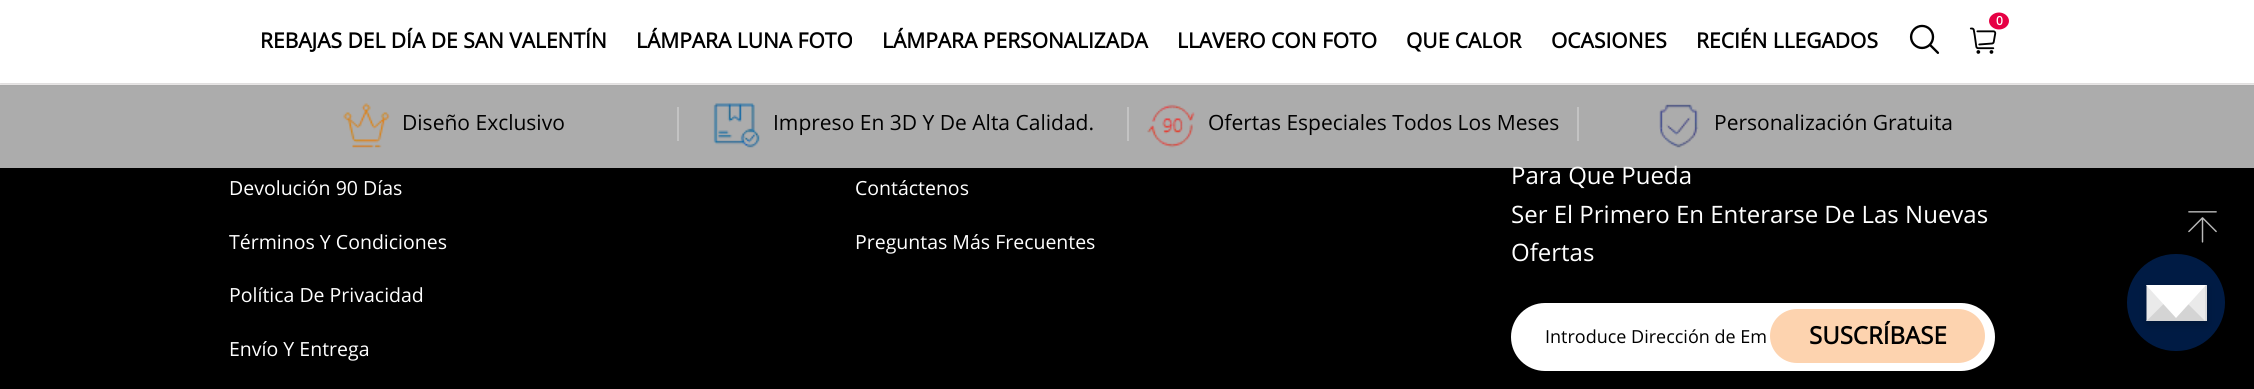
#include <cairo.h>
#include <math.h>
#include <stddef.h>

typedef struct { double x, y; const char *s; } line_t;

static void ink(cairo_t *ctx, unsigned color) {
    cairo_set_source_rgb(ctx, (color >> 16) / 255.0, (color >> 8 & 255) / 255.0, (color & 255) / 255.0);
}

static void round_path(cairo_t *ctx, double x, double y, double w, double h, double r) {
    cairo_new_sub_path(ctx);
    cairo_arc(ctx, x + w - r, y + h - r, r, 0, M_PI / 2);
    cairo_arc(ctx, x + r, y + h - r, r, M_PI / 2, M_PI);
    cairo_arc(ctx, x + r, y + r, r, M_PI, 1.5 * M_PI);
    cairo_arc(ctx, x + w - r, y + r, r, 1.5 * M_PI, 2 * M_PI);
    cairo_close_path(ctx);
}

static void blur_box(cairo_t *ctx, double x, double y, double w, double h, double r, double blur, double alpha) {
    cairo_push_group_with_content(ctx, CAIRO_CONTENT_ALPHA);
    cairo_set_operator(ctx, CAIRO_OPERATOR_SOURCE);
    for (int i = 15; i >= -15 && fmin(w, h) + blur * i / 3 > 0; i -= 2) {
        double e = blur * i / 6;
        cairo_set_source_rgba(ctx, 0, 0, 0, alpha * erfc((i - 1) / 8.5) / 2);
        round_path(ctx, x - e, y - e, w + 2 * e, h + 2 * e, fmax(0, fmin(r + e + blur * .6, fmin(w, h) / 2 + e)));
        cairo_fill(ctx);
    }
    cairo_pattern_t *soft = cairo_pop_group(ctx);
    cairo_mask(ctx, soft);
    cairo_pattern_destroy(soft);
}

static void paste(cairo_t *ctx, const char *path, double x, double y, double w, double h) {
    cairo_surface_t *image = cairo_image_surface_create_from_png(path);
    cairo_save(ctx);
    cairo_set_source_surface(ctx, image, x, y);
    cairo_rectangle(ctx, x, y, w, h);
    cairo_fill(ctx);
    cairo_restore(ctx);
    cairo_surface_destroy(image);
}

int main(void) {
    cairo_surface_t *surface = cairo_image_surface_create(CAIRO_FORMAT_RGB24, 2254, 389);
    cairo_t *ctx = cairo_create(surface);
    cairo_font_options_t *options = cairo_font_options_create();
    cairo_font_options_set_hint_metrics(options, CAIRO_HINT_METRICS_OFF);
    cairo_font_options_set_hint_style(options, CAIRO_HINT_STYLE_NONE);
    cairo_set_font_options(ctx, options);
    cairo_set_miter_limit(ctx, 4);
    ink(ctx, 0x000000);
    cairo_paint(ctx);
    cairo_save(ctx);
    cairo_rectangle(ctx, 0, 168, 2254, 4);
    cairo_clip(ctx);
    blur_box(ctx, 0, 83, 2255, 85, 0, 4.5, 0.1);
    cairo_restore(ctx);
    cairo_select_font_face(ctx, "Open Sans", CAIRO_FONT_SLANT_NORMAL, CAIRO_FONT_WEIGHT_NORMAL);
    cairo_set_font_size(ctx, 24);
    ink(ctx, 0xFFFFFF);
    cairo_move_to(ctx, 1511, 184);
    cairo_show_text(ctx, "Para Que Pueda");
    cairo_set_source_rgba(ctx, 0.965, 0.965, 0.965, 0.7);
    cairo_rectangle(ctx, 0, 85, 2254, 83);
    cairo_fill(ctx);
    ink(ctx, 0xF0EEEE);
    cairo_rectangle(ctx, 0, 83, 2254, 2);
    cairo_fill(ctx);
    ink(ctx, 0x000000);
    blur_box(ctx, 0, 2, 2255, 82, 0, 1.5, 0.1);
    ink(ctx, 0xFFFFFF);
    cairo_rectangle(ctx, 0, 0, 2254, 83);
    cairo_fill(ctx);
    paste(ctx, "media/1.png", 1969, 27, 28, 27);
    ink(ctx, 0xE60044);
    cairo_new_path(ctx);
    cairo_move_to(ctx, 1999, 12.5);
    cairo_curve_to(ctx, 2004.5, 12.5, 2009, 16.5, 2009, 21);
    cairo_curve_to(ctx, 2009, 25.5, 2004.5, 29.5, 1999, 29.5);
    cairo_curve_to(ctx, 1993.5, 29.5, 1989, 25.5, 1989, 21);
    cairo_curve_to(ctx, 1989, 16.5, 1993.5, 12.5, 1999, 12.5);
    cairo_close_path(ctx);
    cairo_fill(ctx);
    cairo_select_font_face(ctx, "Open Sans", CAIRO_FONT_SLANT_NORMAL, CAIRO_FONT_WEIGHT_BOLD);
    cairo_set_font_size(ctx, 12);
    ink(ctx, 0xFFFFFF);
    cairo_move_to(ctx, 1996, 25);
    cairo_show_text(ctx, "0");
    cairo_set_font_size(ctx, 21);
    ink(ctx, 0x000000);
    {
        static const line_t items[] = {
            {260, 48, "REBAJAS DEL DÍA DE SAN VALENTÍN"},
            {636, 48, "LÁMPARA LUNA FOTO"},
            {882, 48, "LÁMPARA PERSONALIZADA"},
            {1177, 48, "LLAVERO CON FOTO"},
            {1406, 48, "QUE CALOR"},
            {1551, 48, "OCASIONES"},
            {1696, 48, "RECIÉN LLEGADOS"},
        };
        for (size_t i = 0; i < sizeof items / sizeof *items; i++) {
            cairo_move_to(ctx, items[i].x, items[i].y);
            cairo_show_text(ctx, items[i].s);
        }
    }
    paste(ctx, "media/2.png", 1909, 24, 31, 30);
    paste(ctx, "media/3.png", 343, 103, 47, 45);
    cairo_select_font_face(ctx, "Open Sans", CAIRO_FONT_SLANT_NORMAL, CAIRO_FONT_WEIGHT_NORMAL);
    cairo_move_to(ctx, 402, 130);
    cairo_show_text(ctx, "Diseño Exclusivo");
    ink(ctx, 0xC3C3C3);
    cairo_rectangle(ctx, 677, 107, 2, 34);
    cairo_fill(ctx);
    paste(ctx, "media/4.png", 713, 103, 47, 45);
    ink(ctx, 0x000000);
    cairo_move_to(ctx, 773, 130);
    cairo_show_text(ctx, "Impreso En 3D Y De Alta Calidad.");
    ink(ctx, 0xC3C3C3);
    cairo_rectangle(ctx, 1127, 107, 2, 34);
    cairo_fill(ctx);
    paste(ctx, "media/5.png", 1147, 104, 48, 44);
    ink(ctx, 0x000000);
    cairo_move_to(ctx, 1208, 130);
    cairo_show_text(ctx, "Ofertas Especiales Todos Los Meses");
    ink(ctx, 0xC3C3C3);
    cairo_rectangle(ctx, 1577, 107, 2, 34);
    cairo_fill(ctx);
    paste(ctx, "media/6.png", 1659, 104, 40, 44);
    ink(ctx, 0x000000);
    cairo_move_to(ctx, 1714, 130);
    cairo_show_text(ctx, "Personalización Gratuita");
    cairo_set_font_size(ctx, 19.5);
    ink(ctx, 0xFFFFFF);
    {
        static const line_t items[] = {
            {229, 195, "Devolución 90 Días"},
            {229, 249, "Términos Y Condiciones"},
            {229, 302, "Política De Privacidad"},
            {229, 356, "Envío Y Entrega"},
            {855, 195, "Contáctenos"},
            {855, 249, "Preguntas Más Frecuentes"},
        };
        for (size_t i = 0; i < sizeof items / sizeof *items; i++) {
            cairo_move_to(ctx, items[i].x, items[i].y);
            cairo_show_text(ctx, items[i].s);
        }
    }
    cairo_set_font_size(ctx, 24);
    cairo_move_to(ctx, 1511, 223);
    cairo_show_text(ctx, "Ser El Primero En Enterarse De Las Nuevas");
    cairo_move_to(ctx, 1511, 261);
    cairo_show_text(ctx, "Ofertas");
    round_path(ctx, 1511, 303, 484, 68, 34);
    cairo_fill(ctx);
    cairo_set_font_size(ctx, 18);
    ink(ctx, 0x000000);
    cairo_move_to(ctx, 1545, 343);
    cairo_show_text(ctx, "Introduce Dirección de Em");
    ink(ctx, 0xFDD3AF);
    round_path(ctx, 1770, 309, 215, 54, 27);
    cairo_fill(ctx);
    cairo_select_font_face(ctx, "Open Sans", CAIRO_FONT_SLANT_NORMAL, CAIRO_FONT_WEIGHT_BOLD);
    cairo_set_font_size(ctx, 24);
    ink(ctx, 0x000000);
    cairo_move_to(ctx, 1809, 344);
    cairo_show_text(ctx, "SUSCRÍBASE");
    paste(ctx, "media/7.png", 2188, 211, 29, 32);
    ink(ctx, 0x001B44);
    round_path(ctx, 2127, 254, 98, 97, 48.5);
    cairo_fill(ctx);
    ink(ctx, 0x000000);
    blur_box(ctx, 2147, 288, 60, 36, 0, 4, 0.2);
    ink(ctx, 0xDDDDDD);
    cairo_rectangle(ctx, 2147, 285, 60, 36);
    cairo_fill(ctx);
    ink(ctx, 0xD4D4D4);
    cairo_new_path(ctx);
    cairo_move_to(ctx, 2206, 321);
    cairo_line_to(ctx, 2146, 321);
    cairo_line_to(ctx, 2176, 288);
    cairo_close_path(ctx);
    cairo_fill(ctx);
    ink(ctx, 0xEAEAEA);
    cairo_new_path(ctx);
    cairo_move_to(ctx, 2146.5, 321);
    cairo_line_to(ctx, 2146.5, 285);
    cairo_line_to(ctx, 2164.5, 303);
    cairo_close_path(ctx);
    cairo_move_to(ctx, 2205, 285);
    cairo_line_to(ctx, 2205, 321);
    cairo_line_to(ctx, 2187, 303);
    cairo_close_path(ctx);
    cairo_fill(ctx);
    ink(ctx, 0xFFFFFF);
    cairo_new_path(ctx);
    cairo_move_to(ctx, 2146, 285);
    cairo_line_to(ctx, 2206, 285);
    cairo_line_to(ctx, 2176, 318);
    cairo_close_path(ctx);
    cairo_fill(ctx);
    cairo_surface_write_to_png(surface, "image.png");
    cairo_font_options_destroy(options);
    cairo_destroy(ctx);
    cairo_surface_destroy(surface);
    return 0;
}
